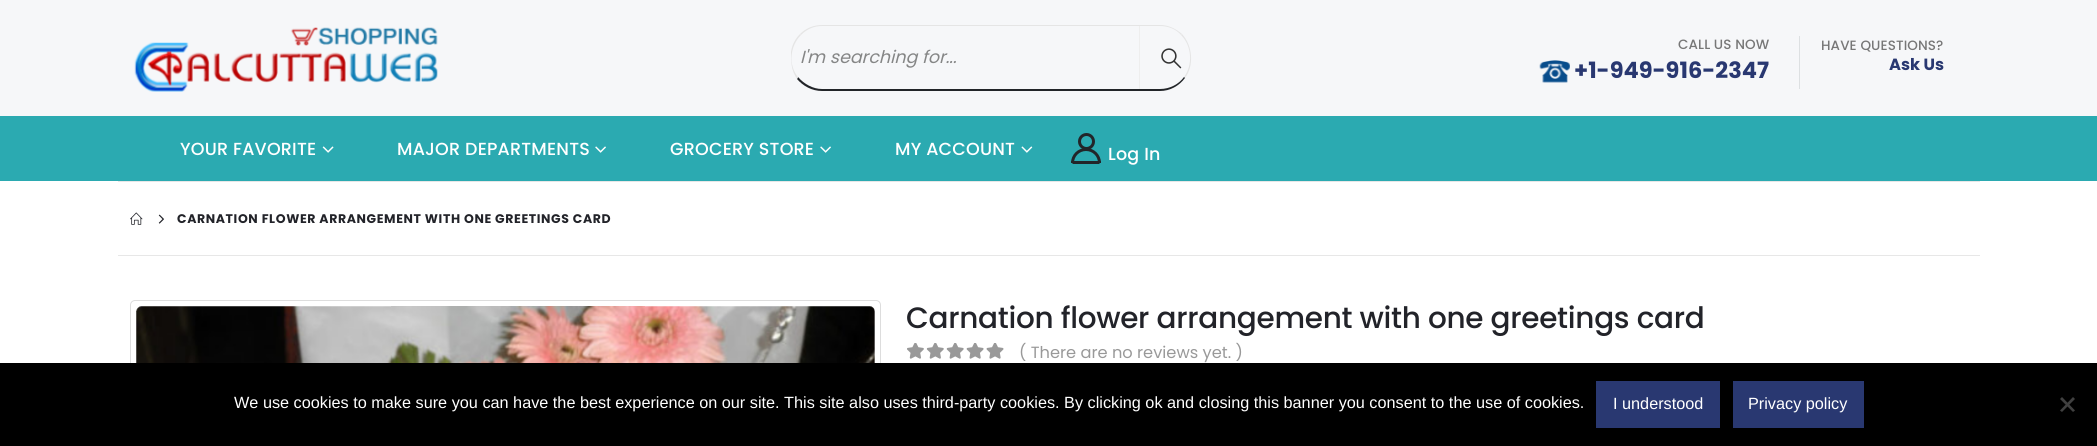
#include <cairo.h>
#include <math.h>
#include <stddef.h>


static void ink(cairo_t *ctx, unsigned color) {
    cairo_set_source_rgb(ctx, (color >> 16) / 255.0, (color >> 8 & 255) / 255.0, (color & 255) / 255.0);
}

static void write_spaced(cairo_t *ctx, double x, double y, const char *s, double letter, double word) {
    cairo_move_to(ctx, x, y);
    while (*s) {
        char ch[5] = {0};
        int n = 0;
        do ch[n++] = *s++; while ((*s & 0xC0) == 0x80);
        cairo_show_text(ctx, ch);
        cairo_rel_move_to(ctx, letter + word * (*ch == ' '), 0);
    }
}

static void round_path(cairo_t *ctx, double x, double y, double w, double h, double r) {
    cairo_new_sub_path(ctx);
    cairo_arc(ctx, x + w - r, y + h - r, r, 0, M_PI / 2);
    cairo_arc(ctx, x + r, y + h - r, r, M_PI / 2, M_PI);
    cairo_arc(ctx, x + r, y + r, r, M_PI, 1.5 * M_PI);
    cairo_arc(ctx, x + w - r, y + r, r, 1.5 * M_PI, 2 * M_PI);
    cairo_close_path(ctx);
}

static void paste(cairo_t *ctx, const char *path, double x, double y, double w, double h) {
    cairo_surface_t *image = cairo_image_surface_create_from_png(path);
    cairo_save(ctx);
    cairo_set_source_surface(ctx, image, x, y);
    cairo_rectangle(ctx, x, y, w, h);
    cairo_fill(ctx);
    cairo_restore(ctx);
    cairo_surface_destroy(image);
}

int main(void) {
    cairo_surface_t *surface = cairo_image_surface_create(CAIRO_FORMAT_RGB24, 2097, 446);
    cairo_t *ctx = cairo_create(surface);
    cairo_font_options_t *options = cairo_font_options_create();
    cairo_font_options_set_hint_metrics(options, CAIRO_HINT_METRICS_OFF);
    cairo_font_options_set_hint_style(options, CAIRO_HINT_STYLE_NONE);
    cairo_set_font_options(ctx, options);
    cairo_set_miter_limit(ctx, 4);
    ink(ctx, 0xFFFFFF);
    cairo_paint(ctx);
    ink(ctx, 0xF6F7F9);
    cairo_rectangle(ctx, 0, 0, 2097, 116);
    cairo_fill(ctx);
    paste(ctx, "media/1.png", 134, 27, 304, 65);
    ink(ctx, 0xE5E5E5);
    cairo_new_path(ctx);
    cairo_move_to(ctx, 822, 25);
    cairo_curve_to(ctx, 814, 25, 806, 28, 800, 34);
    cairo_line_to(ctx, 801, 35);
    cairo_curve_to(ctx, 807, 29, 814, 26, 822, 26);
    cairo_line_to(ctx, 1160, 26);
    cairo_curve_to(ctx, 1168, 26, 1176, 29, 1181, 35);
    cairo_line_to(ctx, 1182, 34);
    cairo_curve_to(ctx, 1176, 29, 1169, 25, 1160, 25);
    cairo_close_path(ctx);
    cairo_fill(ctx);
    cairo_new_path(ctx);
    cairo_move_to(ctx, 1182, 34);
    cairo_curve_to(ctx, 1193, 46, 1194, 66, 1185, 78);
    cairo_line_to(ctx, 1184, 77);
    cairo_curve_to(ctx, 1193, 65, 1192, 46, 1181, 35);
    cairo_close_path(ctx);
    cairo_fill(ctx);
    ink(ctx, 0x222529);
    cairo_new_path(ctx);
    cairo_move_to(ctx, 1185, 78);
    cairo_curve_to(ctx, 1179, 86, 1170, 91, 1160, 91);
    cairo_line_to(ctx, 822, 91);
    cairo_curve_to(ctx, 812, 91, 803, 86, 797, 79);
    cairo_line_to(ctx, 798, 77);
    cairo_curve_to(ctx, 804, 84, 813, 89, 822, 89);
    cairo_line_to(ctx, 1160, 89);
    cairo_curve_to(ctx, 1170, 89, 1179, 84, 1184, 77);
    cairo_close_path(ctx);
    cairo_fill(ctx);
    ink(ctx, 0xE5E5E5);
    cairo_new_path(ctx);
    cairo_move_to(ctx, 791, 52);
    cairo_curve_to(ctx, 792, 45, 795, 39, 800, 34);
    cairo_line_to(ctx, 801, 35);
    cairo_curve_to(ctx, 790, 46, 788, 65, 798, 77);
    cairo_line_to(ctx, 797, 79);
    cairo_curve_to(ctx, 791, 70, 791, 62, 791, 52);
    cairo_close_path(ctx);
    cairo_fill(ctx);
    ink(ctx, 0xEEEEEE);
    cairo_rectangle(ctx, 1139, 26, 1, 63);
    cairo_fill(ctx);
    cairo_select_font_face(ctx, "Poppins", CAIRO_FONT_SLANT_ITALIC, CAIRO_FONT_WEIGHT_NORMAL);
    cairo_set_font_size(ctx, 17.5);
    ink(ctx, 0x858686);
    cairo_move_to(ctx, 800, 63);
    cairo_show_text(ctx, "I'm searching for...");
    paste(ctx, "media/2.png", 1161, 48, 21, 21);
    ink(ctx, 0xDDE0E2);
    cairo_rectangle(ctx, 1799, 36, 1, 53);
    cairo_fill(ctx);
    cairo_select_font_face(ctx, "Poppins Medium", CAIRO_FONT_SLANT_NORMAL, CAIRO_FONT_WEIGHT_NORMAL);
    cairo_set_font_size(ctx, 13.5);
    ink(ctx, 0x777777);
    write_spaced(ctx, 1678, 49, "CALL US NOW", 0.1, 0);
    paste(ctx, "media/3.png", 1539, 60, 31, 23);
    cairo_select_font_face(ctx, "Poppins", CAIRO_FONT_SLANT_NORMAL, CAIRO_FONT_WEIGHT_BOLD);
    cairo_set_font_size(ctx, 22.5);
    ink(ctx, 0x293871);
    cairo_move_to(ctx, 1574, 78);
    cairo_show_text(ctx, "+1-949-916-2347");
    cairo_select_font_face(ctx, "Poppins Medium", CAIRO_FONT_SLANT_NORMAL, CAIRO_FONT_WEIGHT_NORMAL);
    cairo_set_font_size(ctx, 13.5);
    ink(ctx, 0x777777);
    write_spaced(ctx, 1821, 50, "HAVE QUESTIONS?", 0.1, 0);
    cairo_select_font_face(ctx, "Poppins", CAIRO_FONT_SLANT_NORMAL, CAIRO_FONT_WEIGHT_BOLD);
    cairo_set_font_size(ctx, 16.25);
    ink(ctx, 0x293871);
    cairo_move_to(ctx, 1889, 70);
    cairo_show_text(ctx, "Ask Us");
    ink(ctx, 0x2BAAB1);
    cairo_rectangle(ctx, 0, 116, 2097, 65);
    cairo_fill(ctx);
    cairo_select_font_face(ctx, "Poppins Medium", CAIRO_FONT_SLANT_NORMAL, CAIRO_FONT_WEIGHT_NORMAL);
    cairo_set_font_size(ctx, 17.5);
    ink(ctx, 0xFFFFFF);
    write_spaced(ctx, 180, 155, "YOUR FAVORITE", 0.2, 0);
    paste(ctx, "media/4.png", 322, 146, 12, 7);
    write_spaced(ctx, 397, 155, "MAJOR DEPARTMENTS", 0.2, 0);
    paste(ctx, "media/5.png", 595, 146, 11, 7);
    write_spaced(ctx, 670, 155, "GROCERY STORE", 0.2, 0);
    paste(ctx, "media/5.png", 820, 146, 11, 7);
    write_spaced(ctx, 895, 155, "MY ACCOUNT", 0.2, 0);
    paste(ctx, "media/6.png", 1021, 146, 12, 7);
    cairo_arc(ctx, 1086.5, 141.5, 7, 0, 2 * M_PI);
    ink(ctx, 0x222529);
    cairo_set_line_width(ctx, 3);
    cairo_stroke(ctx);
    cairo_new_path(ctx);
    cairo_move_to(ctx, 1086, 149.5);
    cairo_curve_to(ctx, 1093.5, 149.5, 1099.5, 155.5, 1099.5, 163);
    cairo_line_to(ctx, 1099.5, 162.5);
    cairo_line_to(ctx, 1072.5, 162.5);
    cairo_line_to(ctx, 1072.5, 163);
    cairo_curve_to(ctx, 1072.5, 155.5, 1078.5, 149.5, 1086, 149.5);
    cairo_close_path(ctx);
    cairo_stroke(ctx);
    ink(ctx, 0xFFFFFF);
    write_spaced(ctx, 1108, 160, "Log In", 0.2, 0);
    ink(ctx, 0xE7E7E7);
    cairo_rectangle(ctx, 118, 181, 1862, 1);
    cairo_fill(ctx);
    paste(ctx, "media/7.png", 130, 212, 13, 13);
    paste(ctx, "media/8.png", 158, 214, 6, 10);
    cairo_select_font_face(ctx, "Poppins", CAIRO_FONT_SLANT_NORMAL, CAIRO_FONT_WEIGHT_BOLD);
    cairo_set_font_size(ctx, 12.5);
    ink(ctx, 0x222329);
    write_spaced(ctx, 177, 223, "CARNATION FLOWER ARRANGEMENT WITH ONE GREETINGS CARD", 0.62, 0);
    ink(ctx, 0xE7E7E7);
    cairo_rectangle(ctx, 118, 255, 1862, 1);
    cairo_fill(ctx);
    round_path(ctx, 130.5, 300.5, 750, 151, 4.5);
    ink(ctx, 0xDDDDDD);
    cairo_set_line_width(ctx, 1);
    cairo_stroke(ctx);
    paste(ctx, "media/9.png", 136, 306, 739, 57);
    cairo_select_font_face(ctx, "Poppins Medium", CAIRO_FONT_SLANT_NORMAL, CAIRO_FONT_WEIGHT_NORMAL);
    cairo_set_font_size(ctx, 29.5);
    ink(ctx, 0x222329);
    write_spaced(ctx, 906, 328, "Carnation flower arrangement with one greetings card", -0.3, 0);
    paste(ctx, "media/10.png", 907, 343, 97, 16);
    cairo_select_font_face(ctx, "Poppins", CAIRO_FONT_SLANT_NORMAL, CAIRO_FONT_WEIGHT_NORMAL);
    cairo_set_font_size(ctx, 16.25);
    ink(ctx, 0x999999);
    cairo_move_to(ctx, 1019, 358);
    cairo_show_text(ctx, "( There are no reviews yet. )");
    ink(ctx, 0x000000);
    cairo_rectangle(ctx, 0, 363, 2097, 83);
    cairo_fill(ctx);
    cairo_select_font_face(ctx, "Liberation Sans", CAIRO_FONT_SLANT_NORMAL, CAIRO_FONT_WEIGHT_NORMAL);
    ink(ctx, 0xFFFFFF);
    cairo_move_to(ctx, 234, 408);
    cairo_show_text(ctx, "We use cookies to make sure you can have the best experience on our site. This site also uses third-party cookies. By clicking ok and closing this banner you consent to the use of cookies.");
    ink(ctx, 0x293871);
    cairo_rectangle(ctx, 1596, 381, 124, 47);
    cairo_fill(ctx);
    ink(ctx, 0xFFFFFF);
    cairo_move_to(ctx, 1613, 409);
    cairo_show_text(ctx, "I understood");
    ink(ctx, 0x293871);
    cairo_rectangle(ctx, 1733, 381, 131, 47);
    cairo_fill(ctx);
    ink(ctx, 0xFFFFFF);
    cairo_move_to(ctx, 1748, 409);
    cairo_show_text(ctx, "Privacy policy");
    ink(ctx, 0x404040);
    cairo_new_path(ctx);
    cairo_move_to(ctx, 2073, 397);
    cairo_line_to(ctx, 2075, 399);
    cairo_line_to(ctx, 2062, 412);
    cairo_line_to(ctx, 2060, 410.5);
    cairo_close_path(ctx);
    cairo_fill(ctx);
    cairo_new_path(ctx);
    cairo_move_to(ctx, 2060, 399);
    cairo_line_to(ctx, 2062, 397);
    cairo_line_to(ctx, 2075, 410.5);
    cairo_line_to(ctx, 2073, 412);
    cairo_close_path(ctx);
    cairo_fill(ctx);
    cairo_surface_write_to_png(surface, "image.png");
    cairo_font_options_destroy(options);
    cairo_destroy(ctx);
    cairo_surface_destroy(surface);
    return 0;
}
